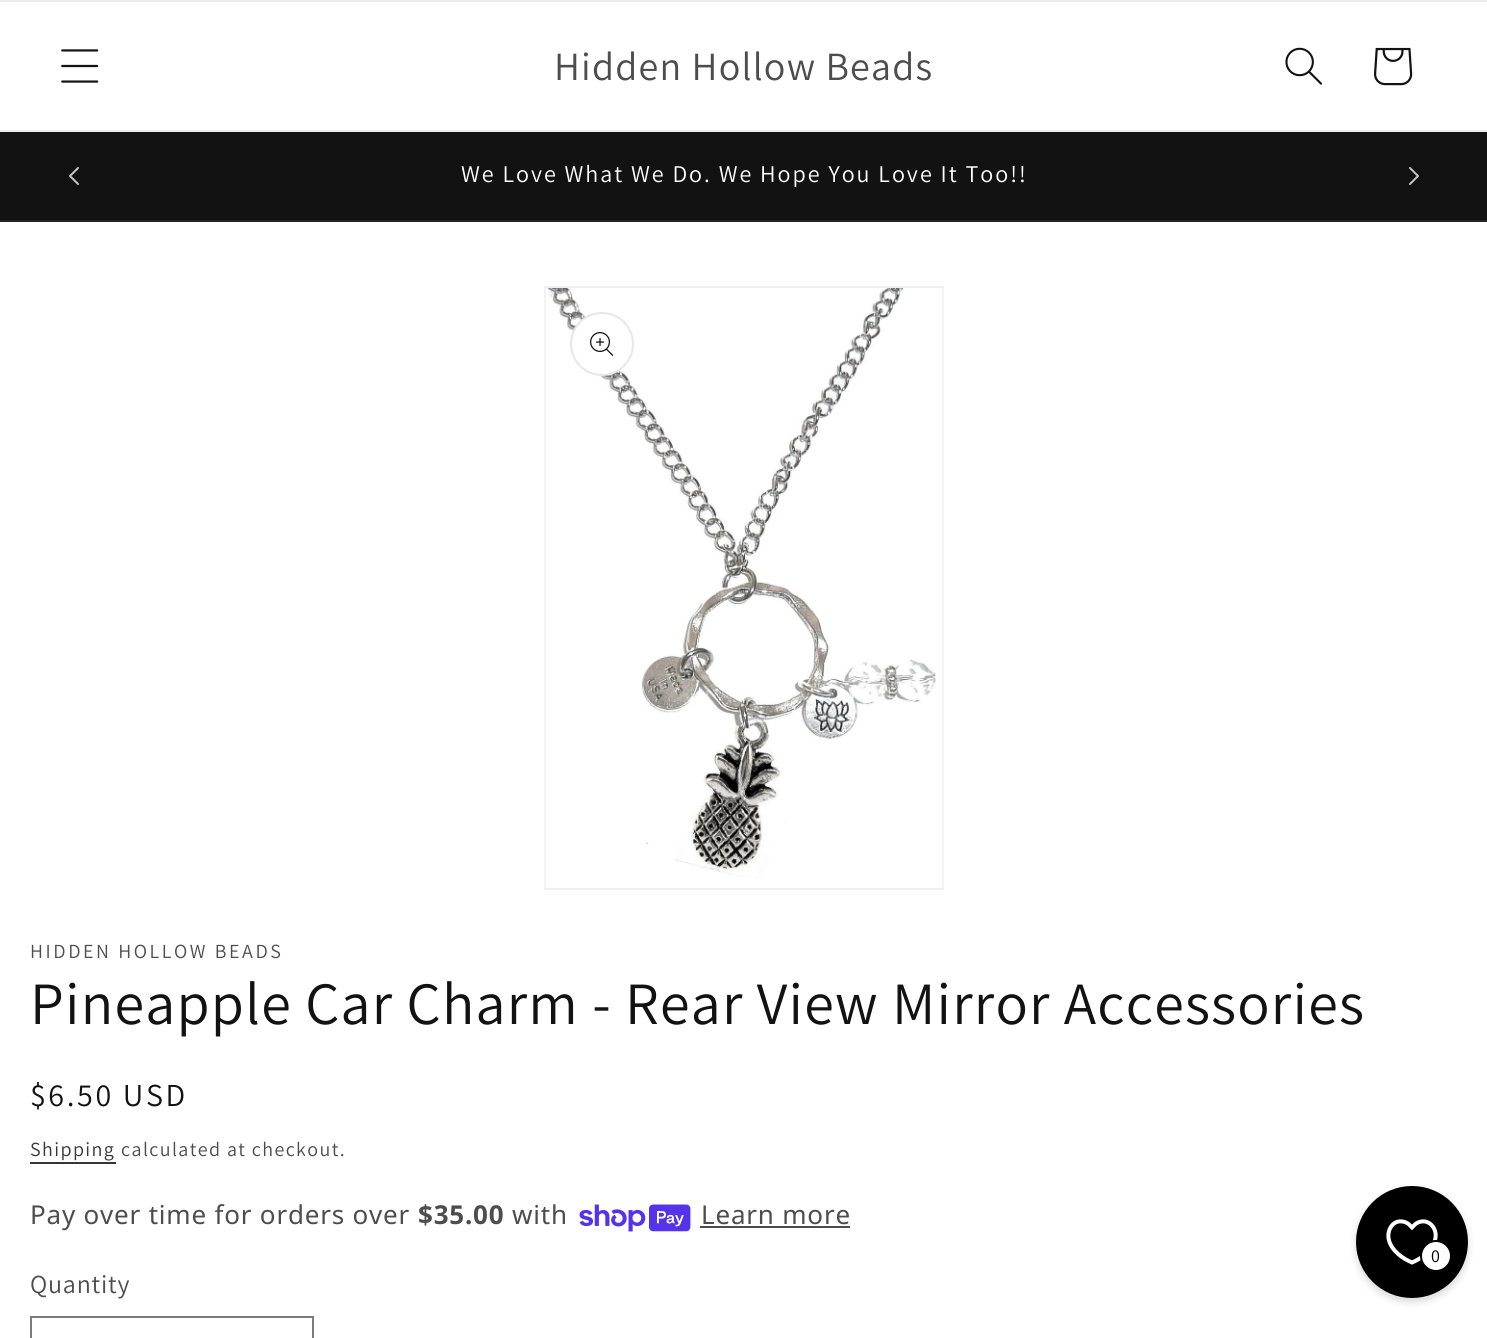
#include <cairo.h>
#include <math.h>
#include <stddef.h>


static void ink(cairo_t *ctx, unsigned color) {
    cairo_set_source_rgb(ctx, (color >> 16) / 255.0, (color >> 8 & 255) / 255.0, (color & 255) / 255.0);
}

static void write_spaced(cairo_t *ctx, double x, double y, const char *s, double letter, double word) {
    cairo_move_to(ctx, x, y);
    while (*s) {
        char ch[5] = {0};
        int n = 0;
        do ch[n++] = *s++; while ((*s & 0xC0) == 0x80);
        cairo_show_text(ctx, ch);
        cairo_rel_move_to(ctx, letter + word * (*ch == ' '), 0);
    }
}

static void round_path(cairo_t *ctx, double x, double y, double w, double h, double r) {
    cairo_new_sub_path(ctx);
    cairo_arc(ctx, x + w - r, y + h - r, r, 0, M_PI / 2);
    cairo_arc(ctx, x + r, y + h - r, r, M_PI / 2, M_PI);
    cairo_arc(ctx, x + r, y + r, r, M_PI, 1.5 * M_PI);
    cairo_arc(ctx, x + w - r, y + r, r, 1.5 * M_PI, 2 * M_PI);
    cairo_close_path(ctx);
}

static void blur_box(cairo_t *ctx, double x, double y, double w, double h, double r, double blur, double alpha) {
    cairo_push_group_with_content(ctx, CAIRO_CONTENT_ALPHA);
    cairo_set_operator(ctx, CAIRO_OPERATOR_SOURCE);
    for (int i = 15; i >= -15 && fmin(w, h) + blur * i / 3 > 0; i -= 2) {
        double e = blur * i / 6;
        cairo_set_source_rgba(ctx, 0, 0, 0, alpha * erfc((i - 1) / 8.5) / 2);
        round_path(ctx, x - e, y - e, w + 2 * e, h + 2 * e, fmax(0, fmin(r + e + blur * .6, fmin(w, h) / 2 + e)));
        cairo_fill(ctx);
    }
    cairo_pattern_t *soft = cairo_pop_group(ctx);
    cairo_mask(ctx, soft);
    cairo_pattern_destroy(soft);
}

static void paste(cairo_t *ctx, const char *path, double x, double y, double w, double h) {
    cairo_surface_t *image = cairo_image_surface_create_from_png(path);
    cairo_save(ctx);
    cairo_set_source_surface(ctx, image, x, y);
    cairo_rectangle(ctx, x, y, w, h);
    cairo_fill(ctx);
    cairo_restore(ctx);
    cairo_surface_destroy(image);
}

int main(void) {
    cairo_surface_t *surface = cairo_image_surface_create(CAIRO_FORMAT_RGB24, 1487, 1338);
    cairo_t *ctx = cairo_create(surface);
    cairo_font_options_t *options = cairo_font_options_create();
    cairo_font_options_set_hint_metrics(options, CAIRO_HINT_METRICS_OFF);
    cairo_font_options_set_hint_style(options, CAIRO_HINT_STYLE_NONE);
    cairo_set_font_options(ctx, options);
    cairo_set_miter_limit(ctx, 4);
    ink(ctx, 0xFFFFFF);
    cairo_paint(ctx);
    ink(ctx, 0xECECEC);
    cairo_rectangle(ctx, 0, 0, 1487, 2);
    cairo_fill(ctx);
    cairo_rectangle(ctx, 0, 130, 1487, 2);
    cairo_fill(ctx);
    paste(ctx, "media/1.png", 61, 49, 38, 34);
    cairo_select_font_face(ctx, "Assistant", CAIRO_FONT_SLANT_NORMAL, CAIRO_FONT_WEIGHT_NORMAL);
    cairo_set_font_size(ctx, 40);
    ink(ctx, 0x4D4D4D);
    write_spaced(ctx, 554, 80, "Hidden Hollow Beads", 1.2, 0);
    paste(ctx, "media/2.png", 1285, 47, 37, 38);
    paste(ctx, "media/3.png", 1374, 47, 39, 39);
    ink(ctx, 0x121212);
    cairo_rectangle(ctx, 0, 132, 1487, 88);
    cairo_fill(ctx);
    ink(ctx, 0x252525);
    cairo_rectangle(ctx, 0, 220, 1487, 2);
    cairo_fill(ctx);
    paste(ctx, "media/4.png", 69, 167, 10, 18);
    cairo_set_font_size(ctx, 24);
    ink(ctx, 0xFFFFFF);
    write_spaced(ctx, 461, 182, "We Love What We Do. We Hope You Love It Too!!", 2, 0);
    paste(ctx, "media/5.png", 1409, 167, 10, 18);
    cairo_rectangle(ctx, 545, 287, 398, 602);
    ink(ctx, 0xF3F3F3);
    cairo_stroke(ctx);
    paste(ctx, "media/6.png", 547, 288, 389, 590);
    ink(ctx, 0xFFFFFF);
    cairo_arc(ctx, 602, 344, 32, 0, 2 * M_PI);
    cairo_fill(ctx);
    cairo_arc(ctx, 602, 344, 31, 0, 2 * M_PI);
    cairo_set_source_rgba(ctx, 0.071, 0.071, 0.071, 0.1);
    cairo_stroke(ctx);
    paste(ctx, "media/7.png", 590, 332, 24, 24);
    cairo_set_font_size(ctx, 20);
    ink(ctx, 0x4D4D4D);
    write_spaced(ctx, 30, 958, "HIDDEN HOLLOW BEADS", 2.6, 0);
    cairo_set_font_size(ctx, 60);
    ink(ctx, 0x121212);
    write_spaced(ctx, 30, 1024, "Pineapple Car Charm - Rear View Mirror Accessories", 1.2, 0);
    cairo_set_font_size(ctx, 32);
    write_spaced(ctx, 30, 1106, "$6.50 USD", 2.6, 0);
    cairo_set_font_size(ctx, 20);
    ink(ctx, 0x363636);
    write_spaced(ctx, 30, 1156, "Shipping", 1.4, 0);
    cairo_rectangle(ctx, 30, 1162, 86, 2);
    cairo_fill(ctx);
    ink(ctx, 0x4D4D4D);
    write_spaced(ctx, 121, 1156, "calculated at checkout.", 1.4, 0);
    cairo_select_font_face(ctx, "Noto Sans", CAIRO_FONT_SLANT_NORMAL, CAIRO_FONT_WEIGHT_NORMAL);
    cairo_set_font_size(ctx, 26);
    write_spaced(ctx, 30, 1224, "Pay over time for orders over", 0.8, 0);
    cairo_select_font_face(ctx, "Noto Sans", CAIRO_FONT_SLANT_NORMAL, CAIRO_FONT_WEIGHT_BOLD);
    write_spaced(ctx, 418, 1224, "$35.00", 0.8, 0);
    cairo_select_font_face(ctx, "Noto Sans", CAIRO_FONT_SLANT_NORMAL, CAIRO_FONT_WEIGHT_NORMAL);
    write_spaced(ctx, 512, 1224, "with", 0.8, 0);
    paste(ctx, "media/8.png", 579, 1204, 112, 28);
    write_spaced(ctx, 701, 1224, "Learn more", 0.8, 0);
    cairo_rectangle(ctx, 700, 1226, 150, 2);
    cairo_fill(ctx);
    cairo_select_font_face(ctx, "Assistant", CAIRO_FONT_SLANT_NORMAL, CAIRO_FONT_WEIGHT_NORMAL);
    write_spaced(ctx, 30, 1293, "Quantity", 0.8, 0);
    cairo_rectangle(ctx, 31, 1317, 282, 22);
    ink(ctx, 0x7D7D7D);
    cairo_stroke(ctx);
    ink(ctx, 0x000000);
    blur_box(ctx, 1356, 1190, 112, 112, 56, 4, 0.15);
    ink(ctx, 0x000000);
    cairo_arc(ctx, 1412, 1242, 54, 0, 2 * M_PI);
    cairo_fill_preserve(ctx);
    cairo_set_line_width(ctx, 4);
    cairo_stroke(ctx);
    cairo_new_path(ctx);
    cairo_move_to(ctx, 1412, 1262.5);
    cairo_curve_to(ctx, 1402.5, 1258.5, 1392, 1251, 1389, 1240.5);
    cairo_curve_to(ctx, 1386, 1229.5, 1394, 1217.5, 1406, 1222.5);
    cairo_curve_to(ctx, 1408.5, 1223.5, 1410, 1225.5, 1412, 1227.5);
    cairo_curve_to(ctx, 1414, 1225.5, 1415.5, 1223.5, 1418, 1222.5);
    cairo_curve_to(ctx, 1428, 1218, 1437, 1227.5, 1435.5, 1237.5);
    cairo_curve_to(ctx, 1434, 1249.5, 1422.5, 1258, 1412, 1262.5);
    cairo_close_path(ctx);
    ink(ctx, 0xFFFFFF);
    cairo_stroke(ctx);
    cairo_arc(ctx, 1436, 1256, 15, 0, 2 * M_PI);
    cairo_fill_preserve(ctx);
    ink(ctx, 0x000000);
    cairo_set_line_width(ctx, 2);
    cairo_stroke(ctx);
    cairo_set_font_size(ctx, 18);
    write_spaced(ctx, 1431, 1262, "0", 1.2, 0);
    cairo_surface_write_to_png(surface, "image.png");
    cairo_font_options_destroy(options);
    cairo_destroy(ctx);
    cairo_surface_destroy(surface);
    return 0;
}
